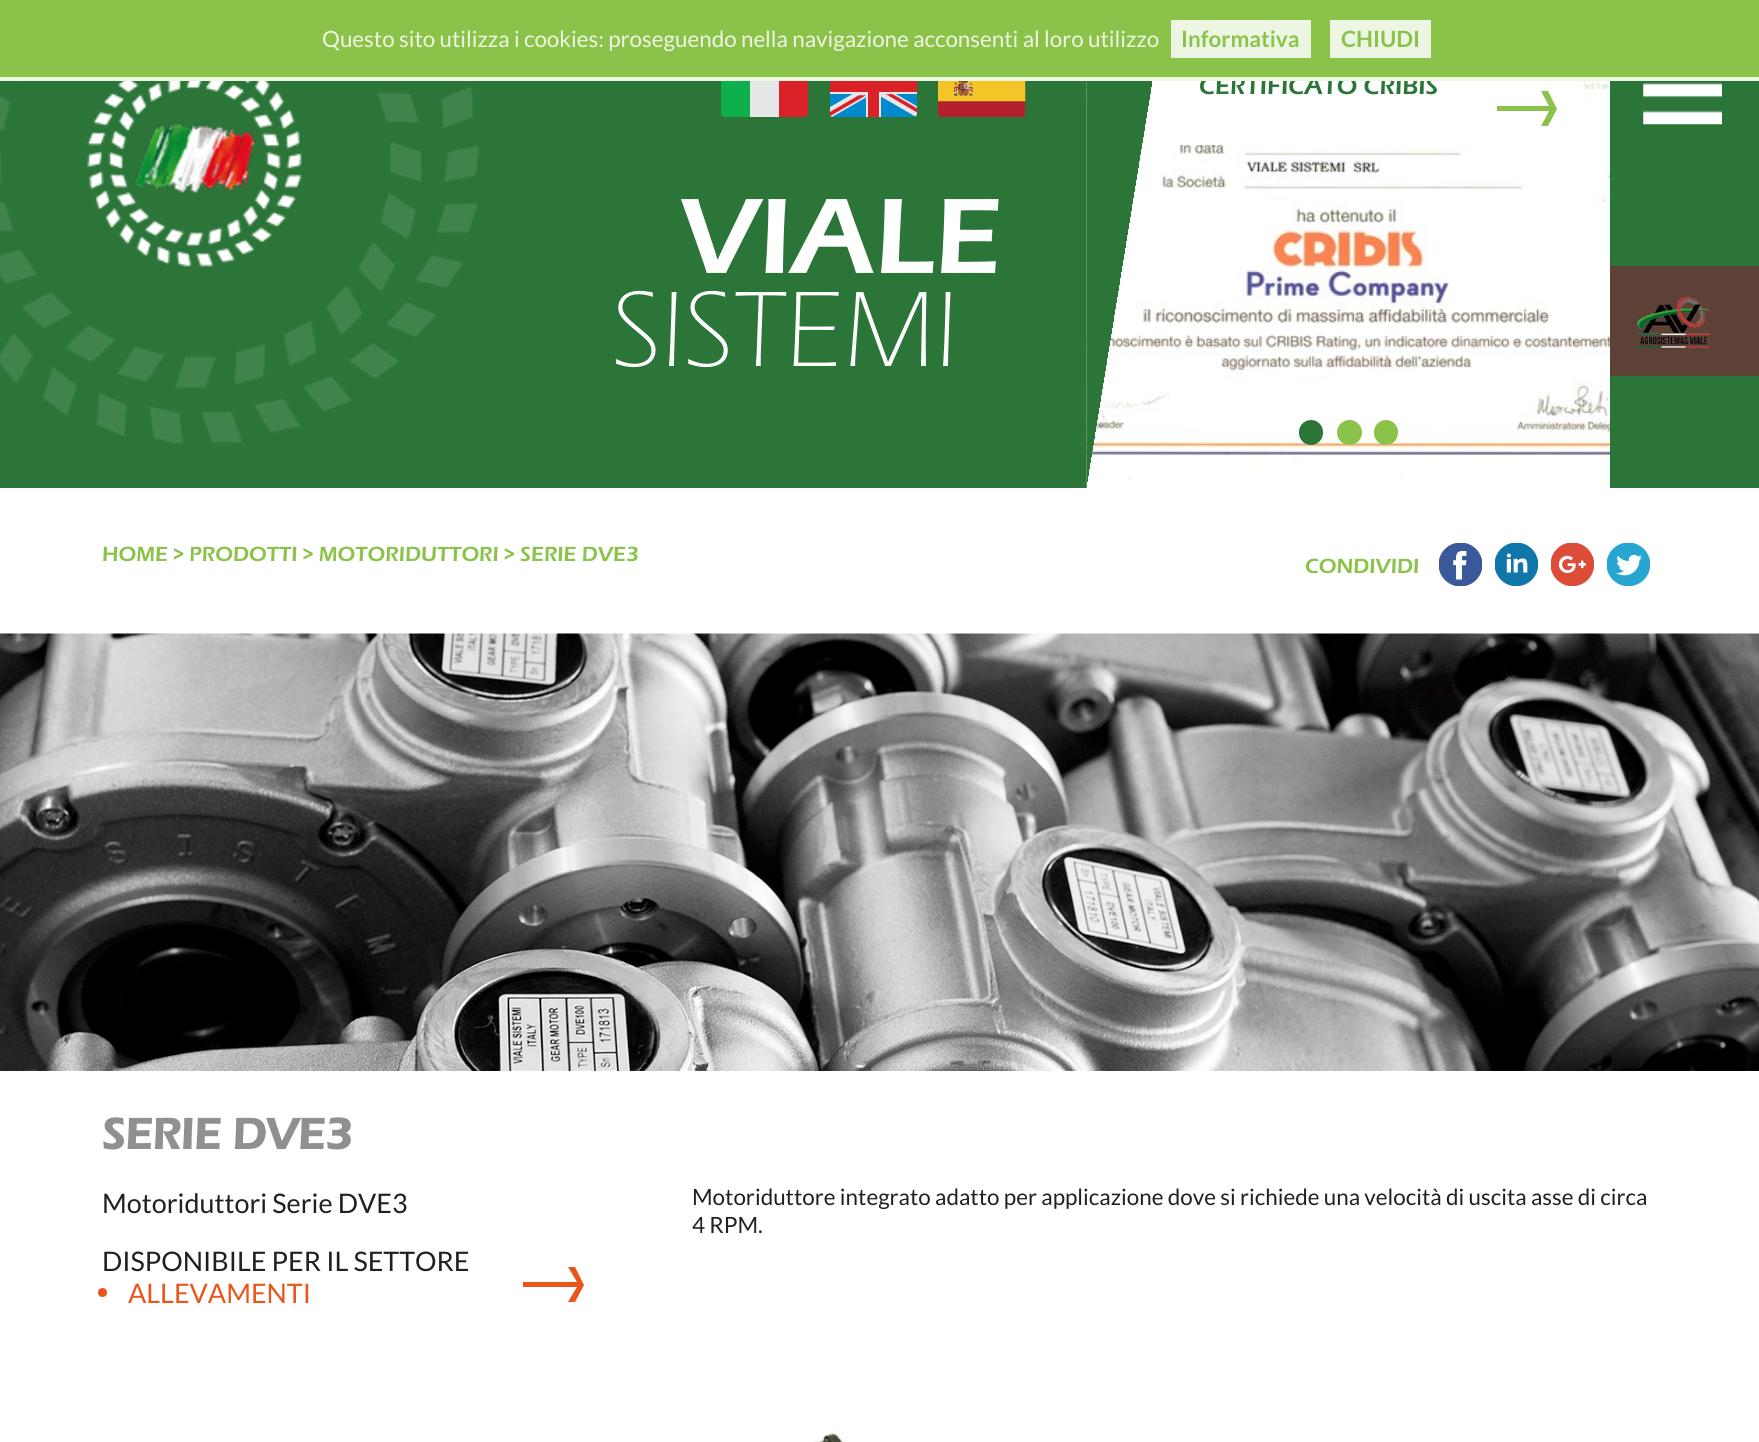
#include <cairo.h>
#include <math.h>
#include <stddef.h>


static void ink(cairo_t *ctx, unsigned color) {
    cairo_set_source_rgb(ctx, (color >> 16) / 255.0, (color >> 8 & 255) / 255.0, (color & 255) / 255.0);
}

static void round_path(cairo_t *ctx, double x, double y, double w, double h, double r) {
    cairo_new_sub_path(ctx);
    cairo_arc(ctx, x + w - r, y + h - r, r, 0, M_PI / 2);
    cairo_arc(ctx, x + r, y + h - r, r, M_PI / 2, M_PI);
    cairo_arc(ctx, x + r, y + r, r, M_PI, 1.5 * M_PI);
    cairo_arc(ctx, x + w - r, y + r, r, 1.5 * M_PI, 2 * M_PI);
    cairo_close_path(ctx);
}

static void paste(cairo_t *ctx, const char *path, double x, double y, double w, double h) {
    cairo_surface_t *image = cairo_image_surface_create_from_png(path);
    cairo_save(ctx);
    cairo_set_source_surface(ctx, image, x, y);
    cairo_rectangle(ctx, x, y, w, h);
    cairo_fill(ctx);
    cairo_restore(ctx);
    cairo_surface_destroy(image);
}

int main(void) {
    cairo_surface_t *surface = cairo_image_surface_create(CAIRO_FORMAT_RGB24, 1759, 1442);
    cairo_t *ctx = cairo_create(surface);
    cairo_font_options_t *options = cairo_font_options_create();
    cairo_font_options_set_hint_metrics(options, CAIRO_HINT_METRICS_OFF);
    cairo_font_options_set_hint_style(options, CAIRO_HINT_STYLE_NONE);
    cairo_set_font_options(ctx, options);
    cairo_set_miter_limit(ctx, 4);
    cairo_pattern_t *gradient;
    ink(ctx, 0xFFFFFF);
    cairo_paint(ctx);
    ink(ctx, 0x2B7538);
    cairo_rectangle(ctx, 0, 81, 1759, 407);
    cairo_fill(ctx);
    ink(ctx, 0x0DB04B);
    cairo_new_path(ctx);
    cairo_move_to(ctx, 725, 56);
    cairo_curve_to(ctx, 723, 56, 721, 58, 721, 60);
    cairo_line_to(ctx, 721, 113);
    cairo_curve_to(ctx, 721, 115, 723, 117, 725, 117);
    cairo_line_to(ctx, 750, 117);
    cairo_line_to(ctx, 750, 56);
    cairo_close_path(ctx);
    cairo_fill(ctx);
    ink(ctx, 0xDA2128);
    cairo_new_path(ctx);
    cairo_move_to(ctx, 804, 56);
    cairo_line_to(ctx, 779, 56);
    cairo_line_to(ctx, 779, 117);
    cairo_line_to(ctx, 804, 117);
    cairo_curve_to(ctx, 807, 117, 808, 115, 808, 113);
    cairo_line_to(ctx, 808, 60);
    cairo_curve_to(ctx, 808, 58, 807, 56, 804, 56);
    cairo_close_path(ctx);
    cairo_fill(ctx);
    ink(ctx, 0x8BC34A);
    cairo_rectangle(ctx, 0, 0, 1759, 77);
    cairo_fill(ctx);
    paste(ctx, "media/4.png", 1086, 81, 524, 407);
    ink(ctx, 0xFFFFFF);
    cairo_rectangle(ctx, 1142, 81, 437, 64);
    cairo_fill(ctx);
    cairo_select_font_face(ctx, "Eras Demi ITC", CAIRO_FONT_SLANT_NORMAL, CAIRO_FONT_WEIGHT_NORMAL);
    cairo_set_font_size(ctx, 24.6);
    ink(ctx, 0x2B7538);
    cairo_move_to(ctx, 1199, 94);
    cairo_show_text(ctx, "CERTIFICATO CRIBIS");
    ink(ctx, 0xEDF6E3);
    cairo_rectangle(ctx, 0, 77, 1759, 4);
    cairo_fill(ctx);
    cairo_select_font_face(ctx, "Lato", CAIRO_FONT_SLANT_NORMAL, CAIRO_FONT_WEIGHT_NORMAL);
    cairo_set_font_size(ctx, 22.4);
    cairo_move_to(ctx, 322, 47);
    cairo_show_text(ctx, "Questo sito utilizza i cookies: proseguendo nella navigazione acconsenti al loro utilizzo");
    cairo_rectangle(ctx, 1171, 20, 140, 38);
    cairo_fill(ctx);
    cairo_select_font_face(ctx, "Lato", CAIRO_FONT_SLANT_NORMAL, CAIRO_FONT_WEIGHT_BOLD);
    ink(ctx, 0x8BC34A);
    cairo_move_to(ctx, 1181, 47);
    cairo_show_text(ctx, "Informativa");
    ink(ctx, 0xEDF6E3);
    cairo_rectangle(ctx, 1330, 20, 101, 38);
    cairo_fill(ctx);
    ink(ctx, 0x8BC34A);
    cairo_move_to(ctx, 1341, 47);
    cairo_show_text(ctx, "CHIUDI");
    paste(ctx, "media/1.png", 0, 81, 480, 364);
    ink(ctx, 0xE6E7E8);
    cairo_rectangle(ctx, 750, 81, 29, 36);
    cairo_fill(ctx);
    paste(ctx, "media/2.png", 830, 81, 87, 36);
    paste(ctx, "media/3.png", 938, 81, 88, 36);
    cairo_select_font_face(ctx, "Eras Demi ITC", CAIRO_FONT_SLANT_NORMAL, CAIRO_FONT_WEIGHT_NORMAL);
    cairo_set_font_size(ctx, 111);
    ink(ctx, 0xFFFFFF);
    cairo_move_to(ctx, 680, 273);
    cairo_show_text(ctx, "VIALE");
    cairo_select_font_face(ctx, "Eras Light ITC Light", CAIRO_FONT_SLANT_NORMAL, CAIRO_FONT_WEIGHT_NORMAL);
    cairo_move_to(ctx, 612, 366);
    cairo_show_text(ctx, "SISTEMI");
    gradient = cairo_pattern_create_linear(1049, 232, 1203, 257);
    cairo_pattern_add_color_stop_rgba(gradient, 0.5, 0.169, 0.459, 0.22, 1);
    cairo_pattern_add_color_stop_rgba(gradient, 0.5, 0.169, 0.459, 0.22, 0);
    cairo_set_source(ctx, gradient);
    cairo_pattern_destroy(gradient);
    cairo_rectangle(ctx, 1087, 81, 65, 401);
    cairo_fill(ctx);
    ink(ctx, 0x8BC34A);
    cairo_new_path(ctx);
    cairo_move_to(ctx, 1548, 126);
    cairo_line_to(ctx, 1541, 126);
    cairo_line_to(ctx, 1549, 111);
    cairo_line_to(ctx, 1497, 111);
    cairo_line_to(ctx, 1497, 106);
    cairo_line_to(ctx, 1549, 106);
    cairo_line_to(ctx, 1541, 91);
    cairo_line_to(ctx, 1548, 91);
    cairo_line_to(ctx, 1557, 109);
    cairo_close_path(ctx);
    cairo_fill(ctx);
    ink(ctx, 0x2B7538);
    round_path(ctx, 1299, 420, 24, 25, 12);
    cairo_fill(ctx);
    ink(ctx, 0x8BC34A);
    cairo_arc(ctx, 1349.5, 432.5, 12.5, 0, 2 * M_PI);
    cairo_fill(ctx);
    round_path(ctx, 1374, 420, 24, 25, 12);
    cairo_fill(ctx);
    paste(ctx, "media/5.png", 1643, 82, 79, 43);
    ink(ctx, 0x5D4136);
    cairo_rectangle(ctx, 1610, 266, 149, 110);
    cairo_fill(ctx);
    paste(ctx, "media/6.png", 1637, 296, 73, 52);
    cairo_select_font_face(ctx, "Eras Demi ITC", CAIRO_FONT_SLANT_NORMAL, CAIRO_FONT_WEIGHT_NORMAL);
    cairo_set_font_size(ctx, 21.25);
    ink(ctx, 0x8BC34A);
    cairo_move_to(ctx, 102, 561);
    cairo_show_text(ctx, "HOME > PRODOTTI > MOTORIDUTTORI > SERIE DVE3");
    cairo_move_to(ctx, 1305, 573);
    cairo_show_text(ctx, "CONDIVIDI");
    paste(ctx, "media/7.png", 1439, 543, 43, 43);
    paste(ctx, "media/8.png", 1495, 543, 43, 43);
    paste(ctx, "media/9.png", 1551, 543, 43, 43);
    paste(ctx, "media/10.png", 1607, 543, 43, 43);
    paste(ctx, "media/11.png", 0, 633, 1759, 438);
    cairo_select_font_face(ctx, "Eras Demi ITC", CAIRO_FONT_SLANT_NORMAL, CAIRO_FONT_WEIGHT_BOLD);
    cairo_set_font_size(ctx, 44.75);
    ink(ctx, 0x909090);
    cairo_move_to(ctx, 102, 1149);
    cairo_show_text(ctx, "SERIE DVE3");
    cairo_select_font_face(ctx, "Lato", CAIRO_FONT_SLANT_NORMAL, CAIRO_FONT_WEIGHT_NORMAL);
    cairo_set_font_size(ctx, 26.9);
    ink(ctx, 0x202020);
    cairo_move_to(ctx, 102, 1213);
    cairo_show_text(ctx, "Motoriduttori Serie DVE3");
    cairo_move_to(ctx, 102, 1271);
    cairo_show_text(ctx, "DISPONIBILE PER IL SETTORE");
    ink(ctx, 0xE9551A);
    cairo_new_path(ctx);
    cairo_arc(ctx, 102.5, 1292.5, 4.5, 0, 2 * M_PI);
    cairo_fill(ctx);
    cairo_move_to(ctx, 128, 1303);
    cairo_show_text(ctx, "ALLEVAMENTI");
    cairo_new_path(ctx);
    cairo_move_to(ctx, 575, 1302);
    cairo_line_to(ctx, 568, 1302);
    cairo_line_to(ctx, 577, 1287);
    cairo_line_to(ctx, 523, 1287);
    cairo_line_to(ctx, 523, 1282);
    cairo_line_to(ctx, 577, 1282);
    cairo_line_to(ctx, 568, 1267);
    cairo_line_to(ctx, 575, 1267);
    cairo_line_to(ctx, 584, 1285);
    cairo_close_path(ctx);
    cairo_fill(ctx);
    cairo_set_font_size(ctx, 22.4);
    ink(ctx, 0x202020);
    cairo_move_to(ctx, 692, 1205);
    cairo_show_text(ctx, "Motoriduttore integrato adatto per applicazione dove si richiede una velocità di uscita asse di circa");
    cairo_move_to(ctx, 692, 1233);
    cairo_show_text(ctx, "4 RPM.");
    paste(ctx, "media/12.png", 814, 1428, 34, 14);
    cairo_surface_write_to_png(surface, "image.png");
    cairo_font_options_destroy(options);
    cairo_destroy(ctx);
    cairo_surface_destroy(surface);
    return 0;
}
